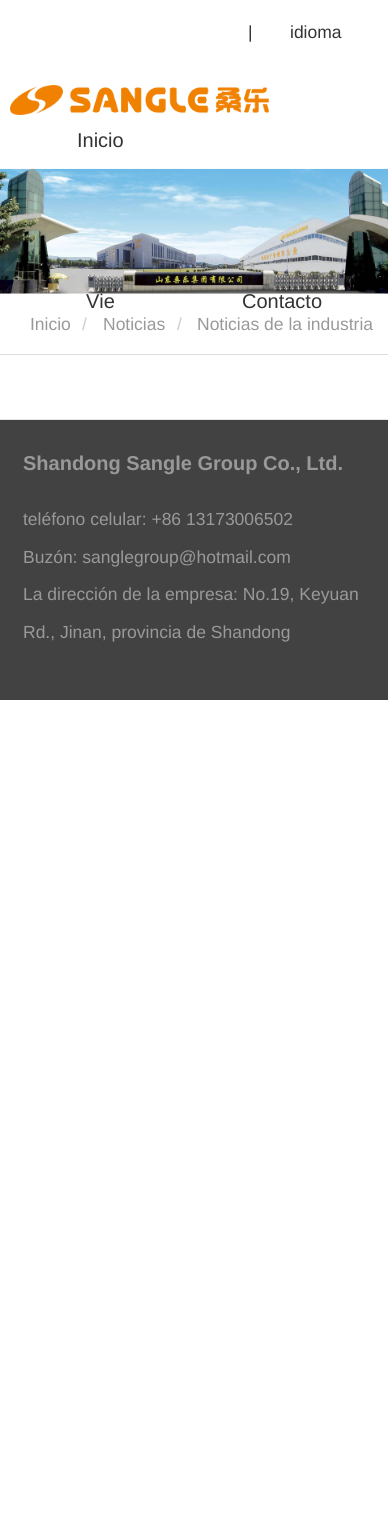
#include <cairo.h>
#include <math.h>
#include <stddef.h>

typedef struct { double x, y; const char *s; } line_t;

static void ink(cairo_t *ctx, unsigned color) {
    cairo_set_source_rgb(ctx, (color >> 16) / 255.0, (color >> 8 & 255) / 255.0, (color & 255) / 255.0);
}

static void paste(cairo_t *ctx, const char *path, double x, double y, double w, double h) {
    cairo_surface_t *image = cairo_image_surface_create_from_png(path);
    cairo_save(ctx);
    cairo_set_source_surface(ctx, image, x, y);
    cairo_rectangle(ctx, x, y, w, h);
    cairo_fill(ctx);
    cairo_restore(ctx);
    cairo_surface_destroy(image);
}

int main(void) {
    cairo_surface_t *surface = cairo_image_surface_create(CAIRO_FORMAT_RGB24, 388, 1517);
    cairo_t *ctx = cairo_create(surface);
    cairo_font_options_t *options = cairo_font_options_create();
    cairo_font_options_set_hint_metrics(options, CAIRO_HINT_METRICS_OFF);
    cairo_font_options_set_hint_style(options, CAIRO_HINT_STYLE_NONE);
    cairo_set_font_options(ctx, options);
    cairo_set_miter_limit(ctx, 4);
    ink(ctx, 0xFFFFFF);
    cairo_paint(ctx);
    cairo_select_font_face(ctx, "Liberation Sans", CAIRO_FONT_SLANT_NORMAL, CAIRO_FONT_WEIGHT_NORMAL);
    cairo_set_font_size(ctx, 17.5);
    ink(ctx, 0x333333);
    cairo_move_to(ctx, 248, 38);
    cairo_show_text(ctx, "|");
    cairo_move_to(ctx, 290, 38);
    cairo_show_text(ctx, "idioma");
    paste(ctx, "media/1.png", 10, 85, 259, 30);
    cairo_set_font_size(ctx, 20);
    {
        static const line_t items[] = {
            {77, 147, "Inicio"},
            {86, 308, "Vie"},
            {242, 308, "Contacto"},
        };
        for (size_t i = 0; i < sizeof items / sizeof *items; i++) {
            cairo_move_to(ctx, items[i].x, items[i].y);
            cairo_show_text(ctx, items[i].s);
        }
    }
    paste(ctx, "media/2.png", 0, 168, 388, 126);
    ink(ctx, 0xDDDDDD);
    cairo_rectangle(ctx, 0, 354, 388, 1);
    cairo_fill(ctx);
    cairo_set_font_size(ctx, 17.5);
    ink(ctx, 0x999999);
    cairo_move_to(ctx, 30, 330);
    cairo_show_text(ctx, "Inicio");
    ink(ctx, 0xCCCCCC);
    cairo_move_to(ctx, 82, 330);
    cairo_show_text(ctx, "/");
    ink(ctx, 0x999999);
    cairo_move_to(ctx, 103, 330);
    cairo_show_text(ctx, "Noticias");
    ink(ctx, 0xCCCCCC);
    cairo_move_to(ctx, 177, 330);
    cairo_show_text(ctx, "/");
    ink(ctx, 0x999999);
    cairo_move_to(ctx, 197, 330);
    cairo_show_text(ctx, "Noticias de la industria");
    ink(ctx, 0x424242);
    cairo_rectangle(ctx, 0, 420, 388, 280);
    cairo_fill(ctx);
    ink(ctx, 0xE5E5E5);
    cairo_rectangle(ctx, 0, 419, 388, 1);
    cairo_fill(ctx);
    cairo_select_font_face(ctx, "Liberation Sans", CAIRO_FONT_SLANT_NORMAL, CAIRO_FONT_WEIGHT_BOLD);
    cairo_set_font_size(ctx, 20);
    ink(ctx, 0x999999);
    cairo_move_to(ctx, 23, 470);
    cairo_show_text(ctx, "Shandong Sangle Group Co., Ltd.");
    cairo_select_font_face(ctx, "Liberation Sans", CAIRO_FONT_SLANT_NORMAL, CAIRO_FONT_WEIGHT_NORMAL);
    cairo_set_font_size(ctx, 17.5);
    {
        static const line_t items[] = {
            {23, 525, "teléfono celular: +86 13173006502"},
            {23, 563, "Buzón: sanglegroup@hotmail.com"},
            {23, 600, "La dirección de la empresa: No.19, Keyuan"},
            {23, 638, "Rd., Jinan, provincia de Shandong"},
        };
        for (size_t i = 0; i < sizeof items / sizeof *items; i++) {
            cairo_move_to(ctx, items[i].x, items[i].y);
            cairo_show_text(ctx, items[i].s);
        }
    }
    cairo_surface_write_to_png(surface, "image.png");
    cairo_font_options_destroy(options);
    cairo_destroy(ctx);
    cairo_surface_destroy(surface);
    return 0;
}
